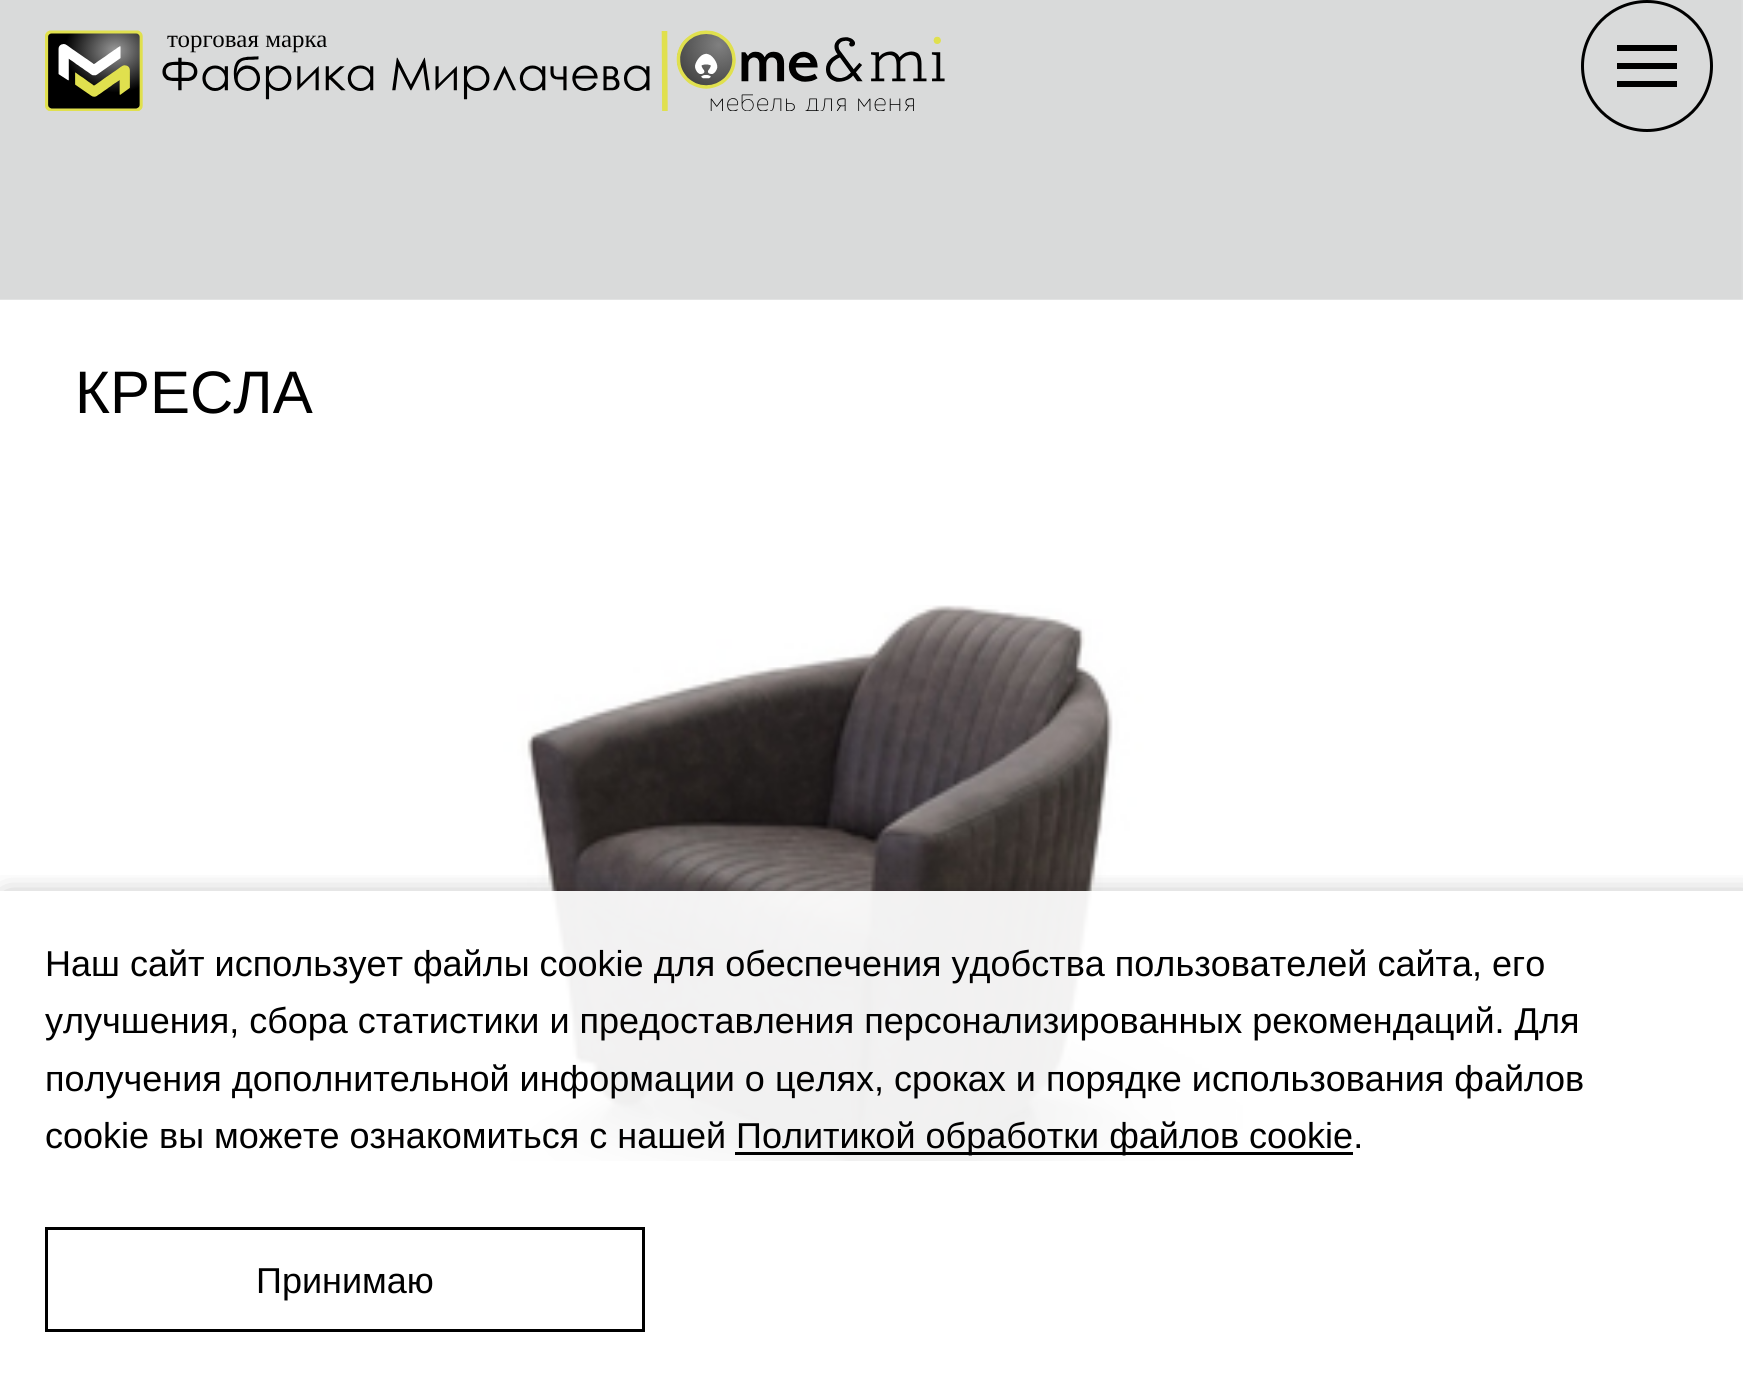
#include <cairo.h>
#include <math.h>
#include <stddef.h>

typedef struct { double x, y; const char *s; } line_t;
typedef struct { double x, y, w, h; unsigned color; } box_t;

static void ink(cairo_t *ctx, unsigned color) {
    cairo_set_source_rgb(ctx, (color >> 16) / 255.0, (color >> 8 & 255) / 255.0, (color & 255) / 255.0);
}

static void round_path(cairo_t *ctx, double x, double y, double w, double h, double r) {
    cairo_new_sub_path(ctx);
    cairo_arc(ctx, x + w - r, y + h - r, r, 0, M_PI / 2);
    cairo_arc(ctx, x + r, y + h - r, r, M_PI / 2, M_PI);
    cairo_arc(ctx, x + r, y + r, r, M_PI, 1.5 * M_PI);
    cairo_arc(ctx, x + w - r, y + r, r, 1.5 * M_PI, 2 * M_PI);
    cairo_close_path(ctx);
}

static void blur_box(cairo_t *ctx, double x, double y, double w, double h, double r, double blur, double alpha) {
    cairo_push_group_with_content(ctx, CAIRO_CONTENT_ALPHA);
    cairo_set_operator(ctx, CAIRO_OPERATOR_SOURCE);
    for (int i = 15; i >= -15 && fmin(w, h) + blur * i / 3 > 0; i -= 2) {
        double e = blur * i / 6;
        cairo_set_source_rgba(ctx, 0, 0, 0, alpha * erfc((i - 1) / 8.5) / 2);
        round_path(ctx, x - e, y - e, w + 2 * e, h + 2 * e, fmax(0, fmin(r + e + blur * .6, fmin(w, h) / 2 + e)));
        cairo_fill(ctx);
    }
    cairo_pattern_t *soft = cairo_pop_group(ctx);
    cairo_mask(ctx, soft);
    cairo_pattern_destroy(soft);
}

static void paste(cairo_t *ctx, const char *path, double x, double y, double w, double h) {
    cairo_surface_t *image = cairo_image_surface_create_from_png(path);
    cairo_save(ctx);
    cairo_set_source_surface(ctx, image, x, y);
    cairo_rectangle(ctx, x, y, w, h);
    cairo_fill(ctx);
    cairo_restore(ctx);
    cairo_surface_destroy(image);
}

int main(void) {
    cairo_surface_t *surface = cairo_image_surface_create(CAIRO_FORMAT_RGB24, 1743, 1375);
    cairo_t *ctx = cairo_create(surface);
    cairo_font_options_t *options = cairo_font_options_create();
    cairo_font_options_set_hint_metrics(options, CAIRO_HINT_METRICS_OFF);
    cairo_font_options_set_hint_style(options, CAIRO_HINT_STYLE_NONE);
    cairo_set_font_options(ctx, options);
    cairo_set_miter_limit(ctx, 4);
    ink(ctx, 0xFFFFFF);
    cairo_paint(ctx);
    paste(ctx, "media/1.png", 0, 0, 1743, 300);
    paste(ctx, "media/2.png", 45, 30, 900, 81);
    cairo_arc(ctx, 1647, 66, 64.5, 0, 2 * M_PI);
    ink(ctx, 0x000000);
    cairo_set_line_width(ctx, 3);
    cairo_stroke(ctx);
    {
        static const box_t items[] = {
            {1617, 45, 60, 6, 0x000000},
            {1617, 63, 60, 6, 0x000000},
            {1617, 81, 60, 6, 0x000000},
        };
        for (size_t i = 0; i < sizeof items / sizeof *items; i++) {
            ink(ctx, items[i].color);
            cairo_rectangle(ctx, items[i].x, items[i].y, items[i].w, items[i].h);
            cairo_fill(ctx);
        }
    }
    cairo_select_font_face(ctx, "Liberation Sans", CAIRO_FONT_SLANT_NORMAL, CAIRO_FONT_WEIGHT_NORMAL);
    cairo_set_font_size(ctx, 60);
    cairo_move_to(ctx, 75, 413);
    cairo_show_text(ctx, "КРЕСЛА");
    paste(ctx, "media/3.png", 496, 605, 775, 556);
    cairo_save(ctx);
    cairo_rectangle(ctx, 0, 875, 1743, 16);
    cairo_clip(ctx);
    ink(ctx, 0x000000);
    blur_box(ctx, 6, 900, 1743, 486, 0, 15, 0.4);
    cairo_restore(ctx);
    cairo_set_source_rgba(ctx, 1, 1, 1, 0.93);
    cairo_rectangle(ctx, 496, 891, 775, 270);
    cairo_fill(ctx);
    cairo_set_font_size(ctx, 36);
    ink(ctx, 0x000000);
    {
        static const line_t items[] = {
            {45, 976, "Наш сайт использует файлы cookie для обеспечения удобства пользователей сайта, его"},
            {45, 1033, "улучшения, сбора статистики и предоставления персонализированных рекомендаций. Для"},
            {45, 1091, "получения дополнительной информации о целях, сроках и порядке использования файлов"},
            {45, 1148, "cookie вы можете ознакомиться с нашей"},
        };
        for (size_t i = 0; i < sizeof items / sizeof *items; i++) {
            cairo_move_to(ctx, items[i].x, items[i].y);
            cairo_show_text(ctx, items[i].s);
        }
    }
    cairo_rectangle(ctx, 735, 1152, 618, 3);
    cairo_fill(ctx);
    cairo_move_to(ctx, 736, 1148);
    cairo_show_text(ctx, "Политикой обработки файлов cookie.");
    cairo_rectangle(ctx, 46.5, 1228.5, 597, 102);
    cairo_stroke(ctx);
    cairo_move_to(ctx, 256, 1293);
    cairo_show_text(ctx, "Принимаю");
    cairo_surface_write_to_png(surface, "image.png");
    cairo_font_options_destroy(options);
    cairo_destroy(ctx);
    cairo_surface_destroy(surface);
    return 0;
}
